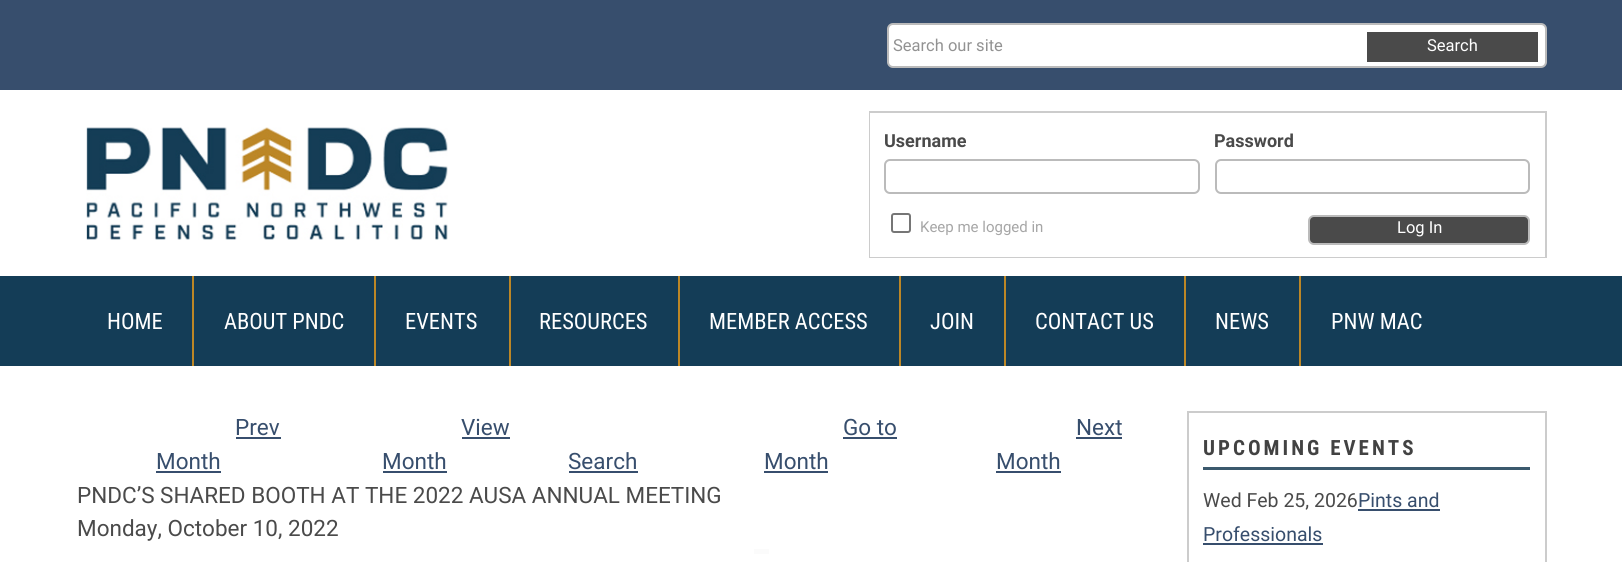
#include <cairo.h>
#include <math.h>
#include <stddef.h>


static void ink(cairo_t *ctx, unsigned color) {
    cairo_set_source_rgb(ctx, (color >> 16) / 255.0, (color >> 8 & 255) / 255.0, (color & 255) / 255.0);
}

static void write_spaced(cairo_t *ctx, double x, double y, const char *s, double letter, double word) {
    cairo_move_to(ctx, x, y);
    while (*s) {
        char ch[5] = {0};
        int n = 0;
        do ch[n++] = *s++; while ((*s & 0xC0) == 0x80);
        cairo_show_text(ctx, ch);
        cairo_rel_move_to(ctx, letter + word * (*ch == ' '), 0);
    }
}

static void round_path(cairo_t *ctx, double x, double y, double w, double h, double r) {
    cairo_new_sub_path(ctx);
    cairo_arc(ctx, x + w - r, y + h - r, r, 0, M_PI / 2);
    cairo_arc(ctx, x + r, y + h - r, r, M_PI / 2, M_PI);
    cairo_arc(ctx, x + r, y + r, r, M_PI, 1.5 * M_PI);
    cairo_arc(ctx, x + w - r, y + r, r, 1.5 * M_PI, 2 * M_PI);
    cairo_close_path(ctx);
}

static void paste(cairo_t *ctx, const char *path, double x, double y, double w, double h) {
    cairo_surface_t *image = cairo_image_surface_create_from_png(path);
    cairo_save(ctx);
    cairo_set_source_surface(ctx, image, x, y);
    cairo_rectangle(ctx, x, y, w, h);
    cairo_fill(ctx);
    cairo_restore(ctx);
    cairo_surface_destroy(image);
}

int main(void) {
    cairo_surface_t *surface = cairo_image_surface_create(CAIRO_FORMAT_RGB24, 1622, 562);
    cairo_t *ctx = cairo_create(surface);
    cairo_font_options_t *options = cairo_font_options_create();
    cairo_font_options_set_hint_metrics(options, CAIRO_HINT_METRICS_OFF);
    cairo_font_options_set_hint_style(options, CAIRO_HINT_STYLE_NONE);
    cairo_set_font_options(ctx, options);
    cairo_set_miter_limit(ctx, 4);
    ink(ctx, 0xFFFFFF);
    cairo_paint(ctx);
    ink(ctx, 0x374E6D);
    cairo_rectangle(ctx, 0, 0, 1622, 90);
    cairo_fill(ctx);
    ink(ctx, 0xFFFFFF);
    round_path(ctx, 888, 24, 658, 43, 5);
    cairo_fill_preserve(ctx);
    ink(ctx, 0xBBBBBB);
    cairo_stroke(ctx);
    cairo_select_font_face(ctx, "Roboto", CAIRO_FONT_SLANT_NORMAL, CAIRO_FONT_WEIGHT_NORMAL);
    cairo_set_font_size(ctx, 16.5);
    ink(ctx, 0x929292);
    cairo_move_to(ctx, 893, 51);
    cairo_show_text(ctx, "Search our site");
    ink(ctx, 0x4A4A4A);
    cairo_rectangle(ctx, 1367, 32, 171, 30);
    cairo_fill(ctx);
    ink(ctx, 0xFFFFFF);
    cairo_move_to(ctx, 1427, 51);
    cairo_show_text(ctx, "Search");
    paste(ctx, "media/1.png", 86, 127, 362, 113);
    cairo_rectangle(ctx, 870, 112, 676, 145);
    ink(ctx, 0xCCCCCC);
    cairo_stroke(ctx);
    ink(ctx, 0xFFFFFF);
    cairo_rectangle(ctx, 870, 113, 675, 144);
    cairo_fill(ctx);
    cairo_select_font_face(ctx, "Roboto", CAIRO_FONT_SLANT_NORMAL, CAIRO_FONT_WEIGHT_BOLD);
    cairo_set_font_size(ctx, 18);
    ink(ctx, 0x4A4A4A);
    cairo_move_to(ctx, 884, 147);
    cairo_show_text(ctx, "Username");
    round_path(ctx, 885, 160, 314, 33, 5);
    ink(ctx, 0xBBBBBB);
    cairo_stroke(ctx);
    ink(ctx, 0x4A4A4A);
    cairo_move_to(ctx, 1214, 147);
    cairo_show_text(ctx, "Password");
    round_path(ctx, 1216, 160, 313, 33, 5);
    ink(ctx, 0xBBBBBB);
    cairo_stroke(ctx);
    round_path(ctx, 892, 214, 18, 18, 2);
    ink(ctx, 0x767676);
    cairo_stroke(ctx);
    cairo_select_font_face(ctx, "Roboto", CAIRO_FONT_SLANT_NORMAL, CAIRO_FONT_WEIGHT_NORMAL);
    cairo_set_font_size(ctx, 15);
    ink(ctx, 0xA6A6A6);
    cairo_move_to(ctx, 920, 232);
    cairo_show_text(ctx, "Keep me logged in");
    ink(ctx, 0x4A4A4A);
    round_path(ctx, 1309, 216, 220, 28, 5);
    cairo_fill_preserve(ctx);
    ink(ctx, 0xBBBBBB);
    cairo_stroke(ctx);
    cairo_set_font_size(ctx, 16.5);
    ink(ctx, 0xFFFFFF);
    cairo_move_to(ctx, 1397, 233);
    cairo_show_text(ctx, "Log In");
    ink(ctx, 0x143D57);
    cairo_rectangle(ctx, 0, 276, 1622, 90);
    cairo_fill(ctx);
    cairo_select_font_face(ctx, "Roboto Condensed", CAIRO_FONT_SLANT_NORMAL, CAIRO_FONT_WEIGHT_NORMAL);
    cairo_set_font_size(ctx, 22.5);
    ink(ctx, 0xFFFFFF);
    cairo_move_to(ctx, 107, 329);
    cairo_show_text(ctx, "HOME");
    ink(ctx, 0xBD8726);
    cairo_rectangle(ctx, 192, 276, 2, 90);
    cairo_fill(ctx);
    ink(ctx, 0xFFFFFF);
    cairo_move_to(ctx, 224, 329);
    cairo_show_text(ctx, "ABOUT PNDC");
    ink(ctx, 0xBD8726);
    cairo_rectangle(ctx, 374, 276, 2, 90);
    cairo_fill(ctx);
    ink(ctx, 0xFFFFFF);
    cairo_move_to(ctx, 405, 329);
    cairo_show_text(ctx, "EVENTS");
    ink(ctx, 0xBD8726);
    cairo_rectangle(ctx, 509, 276, 2, 90);
    cairo_fill(ctx);
    ink(ctx, 0xFFFFFF);
    cairo_move_to(ctx, 539, 329);
    cairo_show_text(ctx, "RESOURCES");
    ink(ctx, 0xBD8726);
    cairo_rectangle(ctx, 678, 276, 2, 90);
    cairo_fill(ctx);
    ink(ctx, 0xFFFFFF);
    cairo_move_to(ctx, 709, 329);
    cairo_show_text(ctx, "MEMBER ACCESS");
    ink(ctx, 0xBD8726);
    cairo_rectangle(ctx, 899, 276, 2, 90);
    cairo_fill(ctx);
    ink(ctx, 0xFFFFFF);
    cairo_move_to(ctx, 930, 329);
    cairo_show_text(ctx, "JOIN");
    ink(ctx, 0xBD8726);
    cairo_rectangle(ctx, 1004, 276, 2, 90);
    cairo_fill(ctx);
    ink(ctx, 0xFFFFFF);
    cairo_move_to(ctx, 1035, 329);
    cairo_show_text(ctx, "CONTACT US");
    ink(ctx, 0xBD8726);
    cairo_rectangle(ctx, 1184, 276, 2, 90);
    cairo_fill(ctx);
    ink(ctx, 0xFFFFFF);
    cairo_move_to(ctx, 1215, 329);
    cairo_show_text(ctx, "NEWS");
    ink(ctx, 0xBD8726);
    cairo_rectangle(ctx, 1299, 276, 2, 90);
    cairo_fill(ctx);
    ink(ctx, 0xFFFFFF);
    cairo_move_to(ctx, 1331, 329);
    cairo_show_text(ctx, "PNW MAC");
    ink(ctx, 0xFBFBFB);
    cairo_rectangle(ctx, 754, 549, 15, 5);
    cairo_fill(ctx);
    cairo_select_font_face(ctx, "Roboto", CAIRO_FONT_SLANT_NORMAL, CAIRO_FONT_WEIGHT_NORMAL);
    ink(ctx, 0x374E6D);
    cairo_move_to(ctx, 235, 435);
    cairo_show_text(ctx, "Prev");
    cairo_rectangle(ctx, 236, 437, 45, 2);
    cairo_fill(ctx);
    cairo_move_to(ctx, 156, 469);
    cairo_show_text(ctx, "Month");
    cairo_rectangle(ctx, 156, 471, 65, 2);
    cairo_fill(ctx);
    cairo_move_to(ctx, 461, 435);
    cairo_show_text(ctx, "View");
    cairo_rectangle(ctx, 462, 437, 48, 2);
    cairo_fill(ctx);
    cairo_move_to(ctx, 382, 469);
    cairo_show_text(ctx, "Month");
    cairo_rectangle(ctx, 383, 471, 64, 2);
    cairo_fill(ctx);
    cairo_move_to(ctx, 568, 469);
    cairo_show_text(ctx, "Search");
    cairo_rectangle(ctx, 569, 471, 69, 2);
    cairo_fill(ctx);
    cairo_move_to(ctx, 843, 435);
    cairo_show_text(ctx, "Go to");
    cairo_rectangle(ctx, 843, 437, 54, 2);
    cairo_fill(ctx);
    cairo_move_to(ctx, 764, 469);
    cairo_show_text(ctx, "Month");
    cairo_rectangle(ctx, 764, 471, 64, 2);
    cairo_fill(ctx);
    cairo_move_to(ctx, 1076, 435);
    cairo_show_text(ctx, "Next");
    cairo_rectangle(ctx, 1076, 437, 46, 2);
    cairo_fill(ctx);
    cairo_move_to(ctx, 996, 469);
    cairo_show_text(ctx, "Month");
    cairo_rectangle(ctx, 996, 471, 65, 2);
    cairo_fill(ctx);
    ink(ctx, 0x4A4A4A);
    cairo_move_to(ctx, 77, 503);
    cairo_show_text(ctx, "PNDC’S SHARED BOOTH AT THE 2022 AUSA ANNUAL MEETING");
    cairo_move_to(ctx, 77, 536);
    cairo_show_text(ctx, "Monday, October 10, 2022");
    cairo_rectangle(ctx, 1188, 412, 358, 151);
    ink(ctx, 0xCCCCCC);
    cairo_stroke(ctx);
    ink(ctx, 0x3B596D);
    cairo_rectangle(ctx, 1203, 467, 327, 3);
    cairo_fill(ctx);
    cairo_select_font_face(ctx, "Roboto Condensed", CAIRO_FONT_SLANT_NORMAL, CAIRO_FONT_WEIGHT_BOLD);
    cairo_set_font_size(ctx, 21);
    ink(ctx, 0x424242);
    write_spaced(ctx, 1203, 455, "UPCOMING EVENTS", 3, 0);
    cairo_select_font_face(ctx, "Roboto", CAIRO_FONT_SLANT_NORMAL, CAIRO_FONT_WEIGHT_NORMAL);
    cairo_set_font_size(ctx, 19.5);
    ink(ctx, 0x4A4A4A);
    cairo_move_to(ctx, 1203, 507);
    cairo_show_text(ctx, "Wed Feb 25, 2026");
    ink(ctx, 0x374E6D);
    cairo_move_to(ctx, 1358, 507);
    cairo_show_text(ctx, "Pints and");
    cairo_rectangle(ctx, 1358, 509, 82, 2);
    cairo_fill(ctx);
    cairo_move_to(ctx, 1203, 541);
    cairo_show_text(ctx, "Professionals");
    cairo_rectangle(ctx, 1203, 543, 120, 2);
    cairo_fill(ctx);
    cairo_surface_write_to_png(surface, "image.png");
    cairo_font_options_destroy(options);
    cairo_destroy(ctx);
    cairo_surface_destroy(surface);
    return 0;
}
